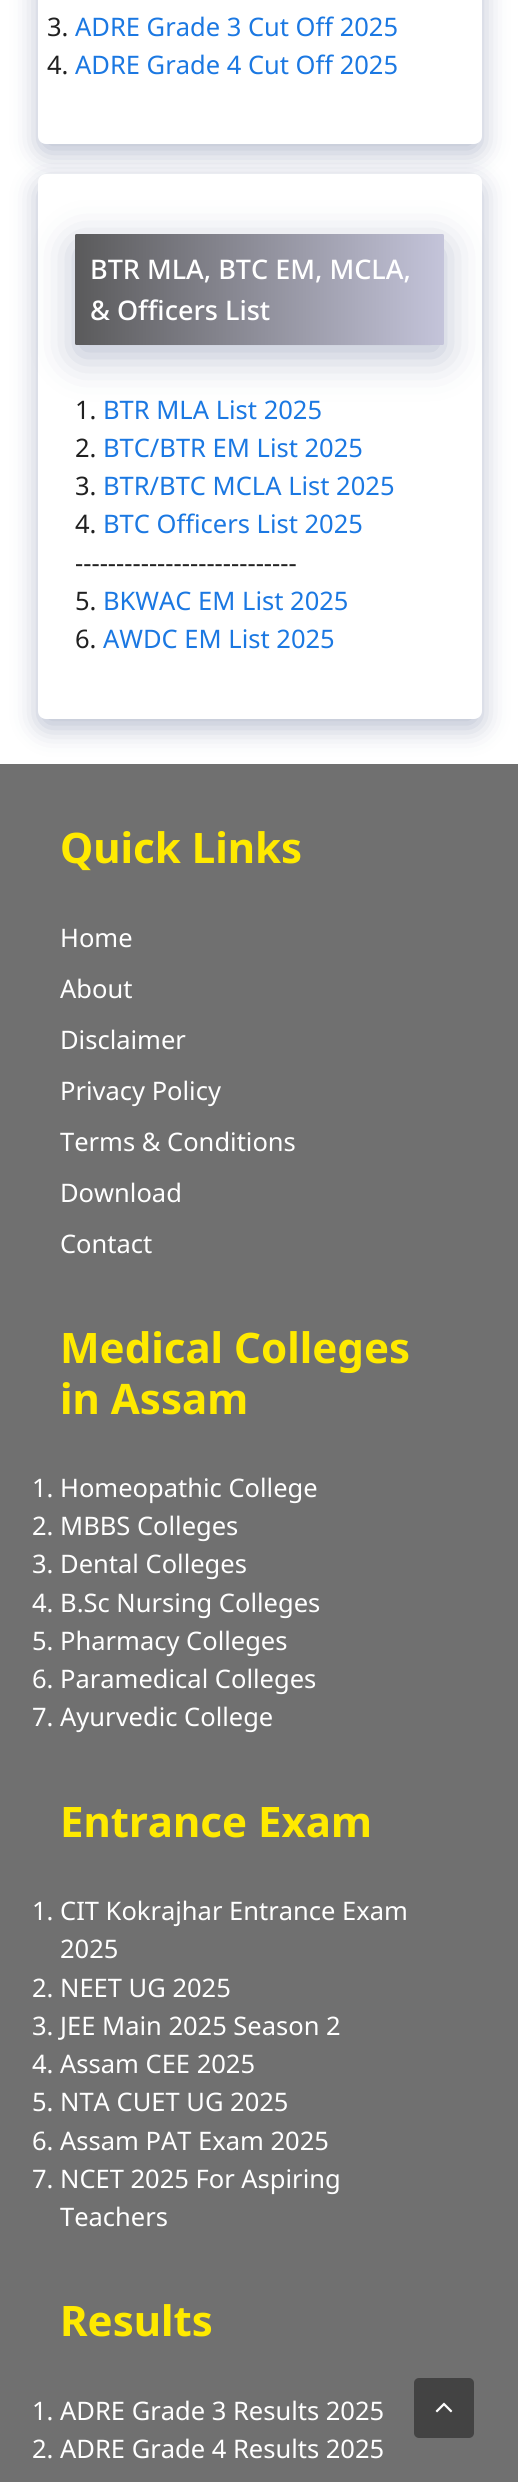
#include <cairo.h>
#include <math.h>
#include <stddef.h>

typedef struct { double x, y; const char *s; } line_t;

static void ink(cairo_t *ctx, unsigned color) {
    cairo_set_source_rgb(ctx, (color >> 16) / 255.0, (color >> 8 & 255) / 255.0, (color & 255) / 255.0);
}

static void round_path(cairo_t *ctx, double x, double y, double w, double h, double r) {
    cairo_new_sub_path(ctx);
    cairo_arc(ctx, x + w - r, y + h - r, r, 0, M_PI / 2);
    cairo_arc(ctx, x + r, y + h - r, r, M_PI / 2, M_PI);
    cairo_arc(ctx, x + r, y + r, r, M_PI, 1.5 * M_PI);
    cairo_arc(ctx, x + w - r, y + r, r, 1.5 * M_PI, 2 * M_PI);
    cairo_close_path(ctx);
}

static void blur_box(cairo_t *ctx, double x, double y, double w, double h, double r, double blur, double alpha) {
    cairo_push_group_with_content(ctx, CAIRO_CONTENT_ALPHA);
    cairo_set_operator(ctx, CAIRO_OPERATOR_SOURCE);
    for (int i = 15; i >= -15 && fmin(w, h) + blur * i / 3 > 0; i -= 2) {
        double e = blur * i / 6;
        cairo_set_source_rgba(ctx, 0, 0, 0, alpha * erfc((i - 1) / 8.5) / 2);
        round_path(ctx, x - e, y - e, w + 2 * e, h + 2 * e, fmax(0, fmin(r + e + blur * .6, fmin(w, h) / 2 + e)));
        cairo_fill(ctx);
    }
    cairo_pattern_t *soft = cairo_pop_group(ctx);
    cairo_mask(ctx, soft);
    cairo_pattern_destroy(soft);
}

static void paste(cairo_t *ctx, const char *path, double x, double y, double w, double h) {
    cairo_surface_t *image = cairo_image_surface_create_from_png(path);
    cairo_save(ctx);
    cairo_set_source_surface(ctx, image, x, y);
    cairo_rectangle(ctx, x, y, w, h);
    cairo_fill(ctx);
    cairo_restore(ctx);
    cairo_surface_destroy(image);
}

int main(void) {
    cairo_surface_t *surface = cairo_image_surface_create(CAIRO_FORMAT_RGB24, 518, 2482);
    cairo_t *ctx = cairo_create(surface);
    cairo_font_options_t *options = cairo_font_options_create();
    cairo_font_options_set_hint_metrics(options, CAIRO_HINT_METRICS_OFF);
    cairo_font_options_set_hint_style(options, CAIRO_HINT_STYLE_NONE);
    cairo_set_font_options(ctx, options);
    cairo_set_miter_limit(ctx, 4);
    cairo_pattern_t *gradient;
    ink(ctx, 0xFFFFFF);
    cairo_paint(ctx);
    ink(ctx, 0x172B63);
    blur_box(ctx, 38, -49, 444, 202, 8, 13.5, 0.3);
    ink(ctx, 0xFFFFFF);
    round_path(ctx, 38, -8, 444, 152, 8);
    cairo_fill(ctx);
    cairo_select_font_face(ctx, "Noto Sans", CAIRO_FONT_SLANT_NORMAL, CAIRO_FONT_WEIGHT_NORMAL);
    cairo_set_font_size(ctx, 25.5);
    ink(ctx, 0x212121);
    cairo_move_to(ctx, 47, 36);
    cairo_show_text(ctx, "3.");
    ink(ctx, 0x1B78E2);
    cairo_move_to(ctx, 75, 36);
    cairo_show_text(ctx, "ADRE Grade 3 Cut Off 2025");
    ink(ctx, 0x212121);
    cairo_move_to(ctx, 47, 74);
    cairo_show_text(ctx, "4.");
    ink(ctx, 0x1B78E2);
    cairo_move_to(ctx, 75, 74);
    cairo_show_text(ctx, "ADRE Grade 4 Cut Off 2025");
    ink(ctx, 0x707070);
    cairo_rectangle(ctx, 0, 764, 518, 1718);
    cairo_fill(ctx);
    ink(ctx, 0x172B63);
    blur_box(ctx, 38, 183, 444, 545, 8, 13.5, 0.3);
    ink(ctx, 0xFFFFFF);
    round_path(ctx, 38, 174, 444, 545, 8);
    cairo_fill(ctx);
    ink(ctx, 0x172B63);
    blur_box(ctx, 75, 245, 369, 111, 1.5, 21, 0.3);
    gradient = cairo_pattern_create_linear(75, 290, 444, 290);
    cairo_pattern_add_color_stop_rgba(gradient, 0, 0.353, 0.353, 0.357, 1);
    cairo_pattern_add_color_stop_rgba(gradient, 1, 0.769, 0.769, 0.855, 1);
    cairo_set_source(ctx, gradient);
    cairo_pattern_destroy(gradient);
    round_path(ctx, 75, 234, 369, 111, 1.5);
    cairo_fill(ctx);
    cairo_select_font_face(ctx, "Noto Sans Medium", CAIRO_FONT_SLANT_NORMAL, CAIRO_FONT_WEIGHT_NORMAL);
    cairo_set_font_size(ctx, 27);
    ink(ctx, 0xFFFFFF);
    cairo_move_to(ctx, 90, 279);
    cairo_show_text(ctx, "BTR MLA, BTC EM, MCLA,");
    cairo_move_to(ctx, 90, 320);
    cairo_show_text(ctx, "& Officers List");
    cairo_select_font_face(ctx, "Noto Sans", CAIRO_FONT_SLANT_NORMAL, CAIRO_FONT_WEIGHT_NORMAL);
    cairo_set_font_size(ctx, 25.5);
    ink(ctx, 0x212121);
    cairo_move_to(ctx, 75, 419);
    cairo_show_text(ctx, "1.");
    ink(ctx, 0x1B78E2);
    cairo_move_to(ctx, 103, 419);
    cairo_show_text(ctx, "BTR MLA List 2025");
    ink(ctx, 0x212121);
    cairo_move_to(ctx, 75, 457);
    cairo_show_text(ctx, "2.");
    ink(ctx, 0x1B78E2);
    cairo_move_to(ctx, 103, 457);
    cairo_show_text(ctx, "BTC/BTR EM List 2025");
    ink(ctx, 0x212121);
    cairo_move_to(ctx, 75, 495);
    cairo_show_text(ctx, "3.");
    ink(ctx, 0x1B78E2);
    cairo_move_to(ctx, 103, 495);
    cairo_show_text(ctx, "BTR/BTC MCLA List 2025");
    ink(ctx, 0x212121);
    cairo_move_to(ctx, 75, 533);
    cairo_show_text(ctx, "4.");
    ink(ctx, 0x1B78E2);
    cairo_move_to(ctx, 103, 533);
    cairo_show_text(ctx, "BTC Officers List 2025");
    ink(ctx, 0x212121);
    cairo_move_to(ctx, 75, 572);
    cairo_show_text(ctx, "---------------------------");
    cairo_move_to(ctx, 75, 610);
    cairo_show_text(ctx, "5.");
    ink(ctx, 0x1B78E2);
    cairo_move_to(ctx, 103, 610);
    cairo_show_text(ctx, "BKWAC EM List 2025");
    ink(ctx, 0x212121);
    cairo_move_to(ctx, 75, 648);
    cairo_show_text(ctx, "6.");
    ink(ctx, 0x1B78E2);
    cairo_move_to(ctx, 103, 648);
    cairo_show_text(ctx, "AWDC EM List 2025");
    cairo_select_font_face(ctx, "Noto Sans", CAIRO_FONT_SLANT_NORMAL, CAIRO_FONT_WEIGHT_BOLD);
    cairo_set_font_size(ctx, 42);
    ink(ctx, 0xFFEA00);
    cairo_move_to(ctx, 60, 863);
    cairo_show_text(ctx, "Quick Links");
    cairo_select_font_face(ctx, "Noto Sans", CAIRO_FONT_SLANT_NORMAL, CAIRO_FONT_WEIGHT_NORMAL);
    cairo_set_font_size(ctx, 25.5);
    ink(ctx, 0xFFFFFF);
    {
        static const line_t items[] = {
            {60, 947, "Home"},
            {60, 998, "About"},
            {60, 1049, "Disclaimer"},
            {60, 1100, "Privacy Policy"},
            {60, 1151, "Terms & Conditions"},
            {60, 1202, "Download"},
            {60, 1253, "Contact"},
        };
        for (size_t i = 0; i < sizeof items / sizeof *items; i++) {
            cairo_move_to(ctx, items[i].x, items[i].y);
            cairo_show_text(ctx, items[i].s);
        }
    }
    cairo_select_font_face(ctx, "Noto Sans", CAIRO_FONT_SLANT_NORMAL, CAIRO_FONT_WEIGHT_BOLD);
    cairo_set_font_size(ctx, 42);
    ink(ctx, 0xFFEA00);
    cairo_move_to(ctx, 60, 1363);
    cairo_show_text(ctx, "Medical Colleges");
    cairo_move_to(ctx, 60, 1414);
    cairo_show_text(ctx, "in Assam");
    cairo_select_font_face(ctx, "Noto Sans", CAIRO_FONT_SLANT_NORMAL, CAIRO_FONT_WEIGHT_NORMAL);
    cairo_set_font_size(ctx, 25.5);
    ink(ctx, 0xFFFFFF);
    {
        static const line_t items[] = {
            {32, 1497, "1. Homeopathic College"},
            {32, 1535, "2. MBBS Colleges"},
            {32, 1573, "3. Dental Colleges"},
            {32, 1612, "4. B.Sc Nursing Colleges"},
            {32, 1650, "5. Pharmacy Colleges"},
            {32, 1688, "6. Paramedical Colleges"},
            {32, 1726, "7. Ayurvedic College"},
        };
        for (size_t i = 0; i < sizeof items / sizeof *items; i++) {
            cairo_move_to(ctx, items[i].x, items[i].y);
            cairo_show_text(ctx, items[i].s);
        }
    }
    cairo_select_font_face(ctx, "Noto Sans", CAIRO_FONT_SLANT_NORMAL, CAIRO_FONT_WEIGHT_BOLD);
    cairo_set_font_size(ctx, 42);
    ink(ctx, 0xFFEA00);
    cairo_move_to(ctx, 60, 1837);
    cairo_show_text(ctx, "Entrance Exam");
    cairo_select_font_face(ctx, "Noto Sans", CAIRO_FONT_SLANT_NORMAL, CAIRO_FONT_WEIGHT_NORMAL);
    cairo_set_font_size(ctx, 25.5);
    ink(ctx, 0xFFFFFF);
    {
        static const line_t items[] = {
            {32, 1920, "1. CIT Kokrajhar Entrance Exam"},
            {60, 1958, "2025"},
            {32, 1997, "2. NEET UG 2025"},
            {32, 2035, "3. JEE Main 2025 Season 2"},
            {32, 2073, "4. Assam CEE 2025"},
            {32, 2111, "5. NTA CUET UG 2025"},
            {32, 2150, "6. Assam PAT Exam 2025"},
            {32, 2188, "7. NCET 2025 For Aspiring"},
            {60, 2226, "Teachers"},
        };
        for (size_t i = 0; i < sizeof items / sizeof *items; i++) {
            cairo_move_to(ctx, items[i].x, items[i].y);
            cairo_show_text(ctx, items[i].s);
        }
    }
    cairo_select_font_face(ctx, "Noto Sans", CAIRO_FONT_SLANT_NORMAL, CAIRO_FONT_WEIGHT_BOLD);
    cairo_set_font_size(ctx, 42);
    ink(ctx, 0xFFEA00);
    cairo_move_to(ctx, 60, 2336);
    cairo_show_text(ctx, "Results");
    cairo_select_font_face(ctx, "Noto Sans", CAIRO_FONT_SLANT_NORMAL, CAIRO_FONT_WEIGHT_NORMAL);
    cairo_set_font_size(ctx, 25.5);
    ink(ctx, 0xFFFFFF);
    cairo_move_to(ctx, 32, 2420);
    cairo_show_text(ctx, "1. ADRE Grade 3 Results 2025");
    cairo_move_to(ctx, 32, 2458);
    cairo_show_text(ctx, "2. ADRE Grade 4 Results 2025");
    ink(ctx, 0x434343);
    round_path(ctx, 414, 2378, 60, 60, 5);
    cairo_fill(ctx);
    paste(ctx, "media/1.png", 435, 2402, 18, 11);
    cairo_surface_write_to_png(surface, "image.png");
    cairo_font_options_destroy(options);
    cairo_destroy(ctx);
    cairo_surface_destroy(surface);
    return 0;
}
